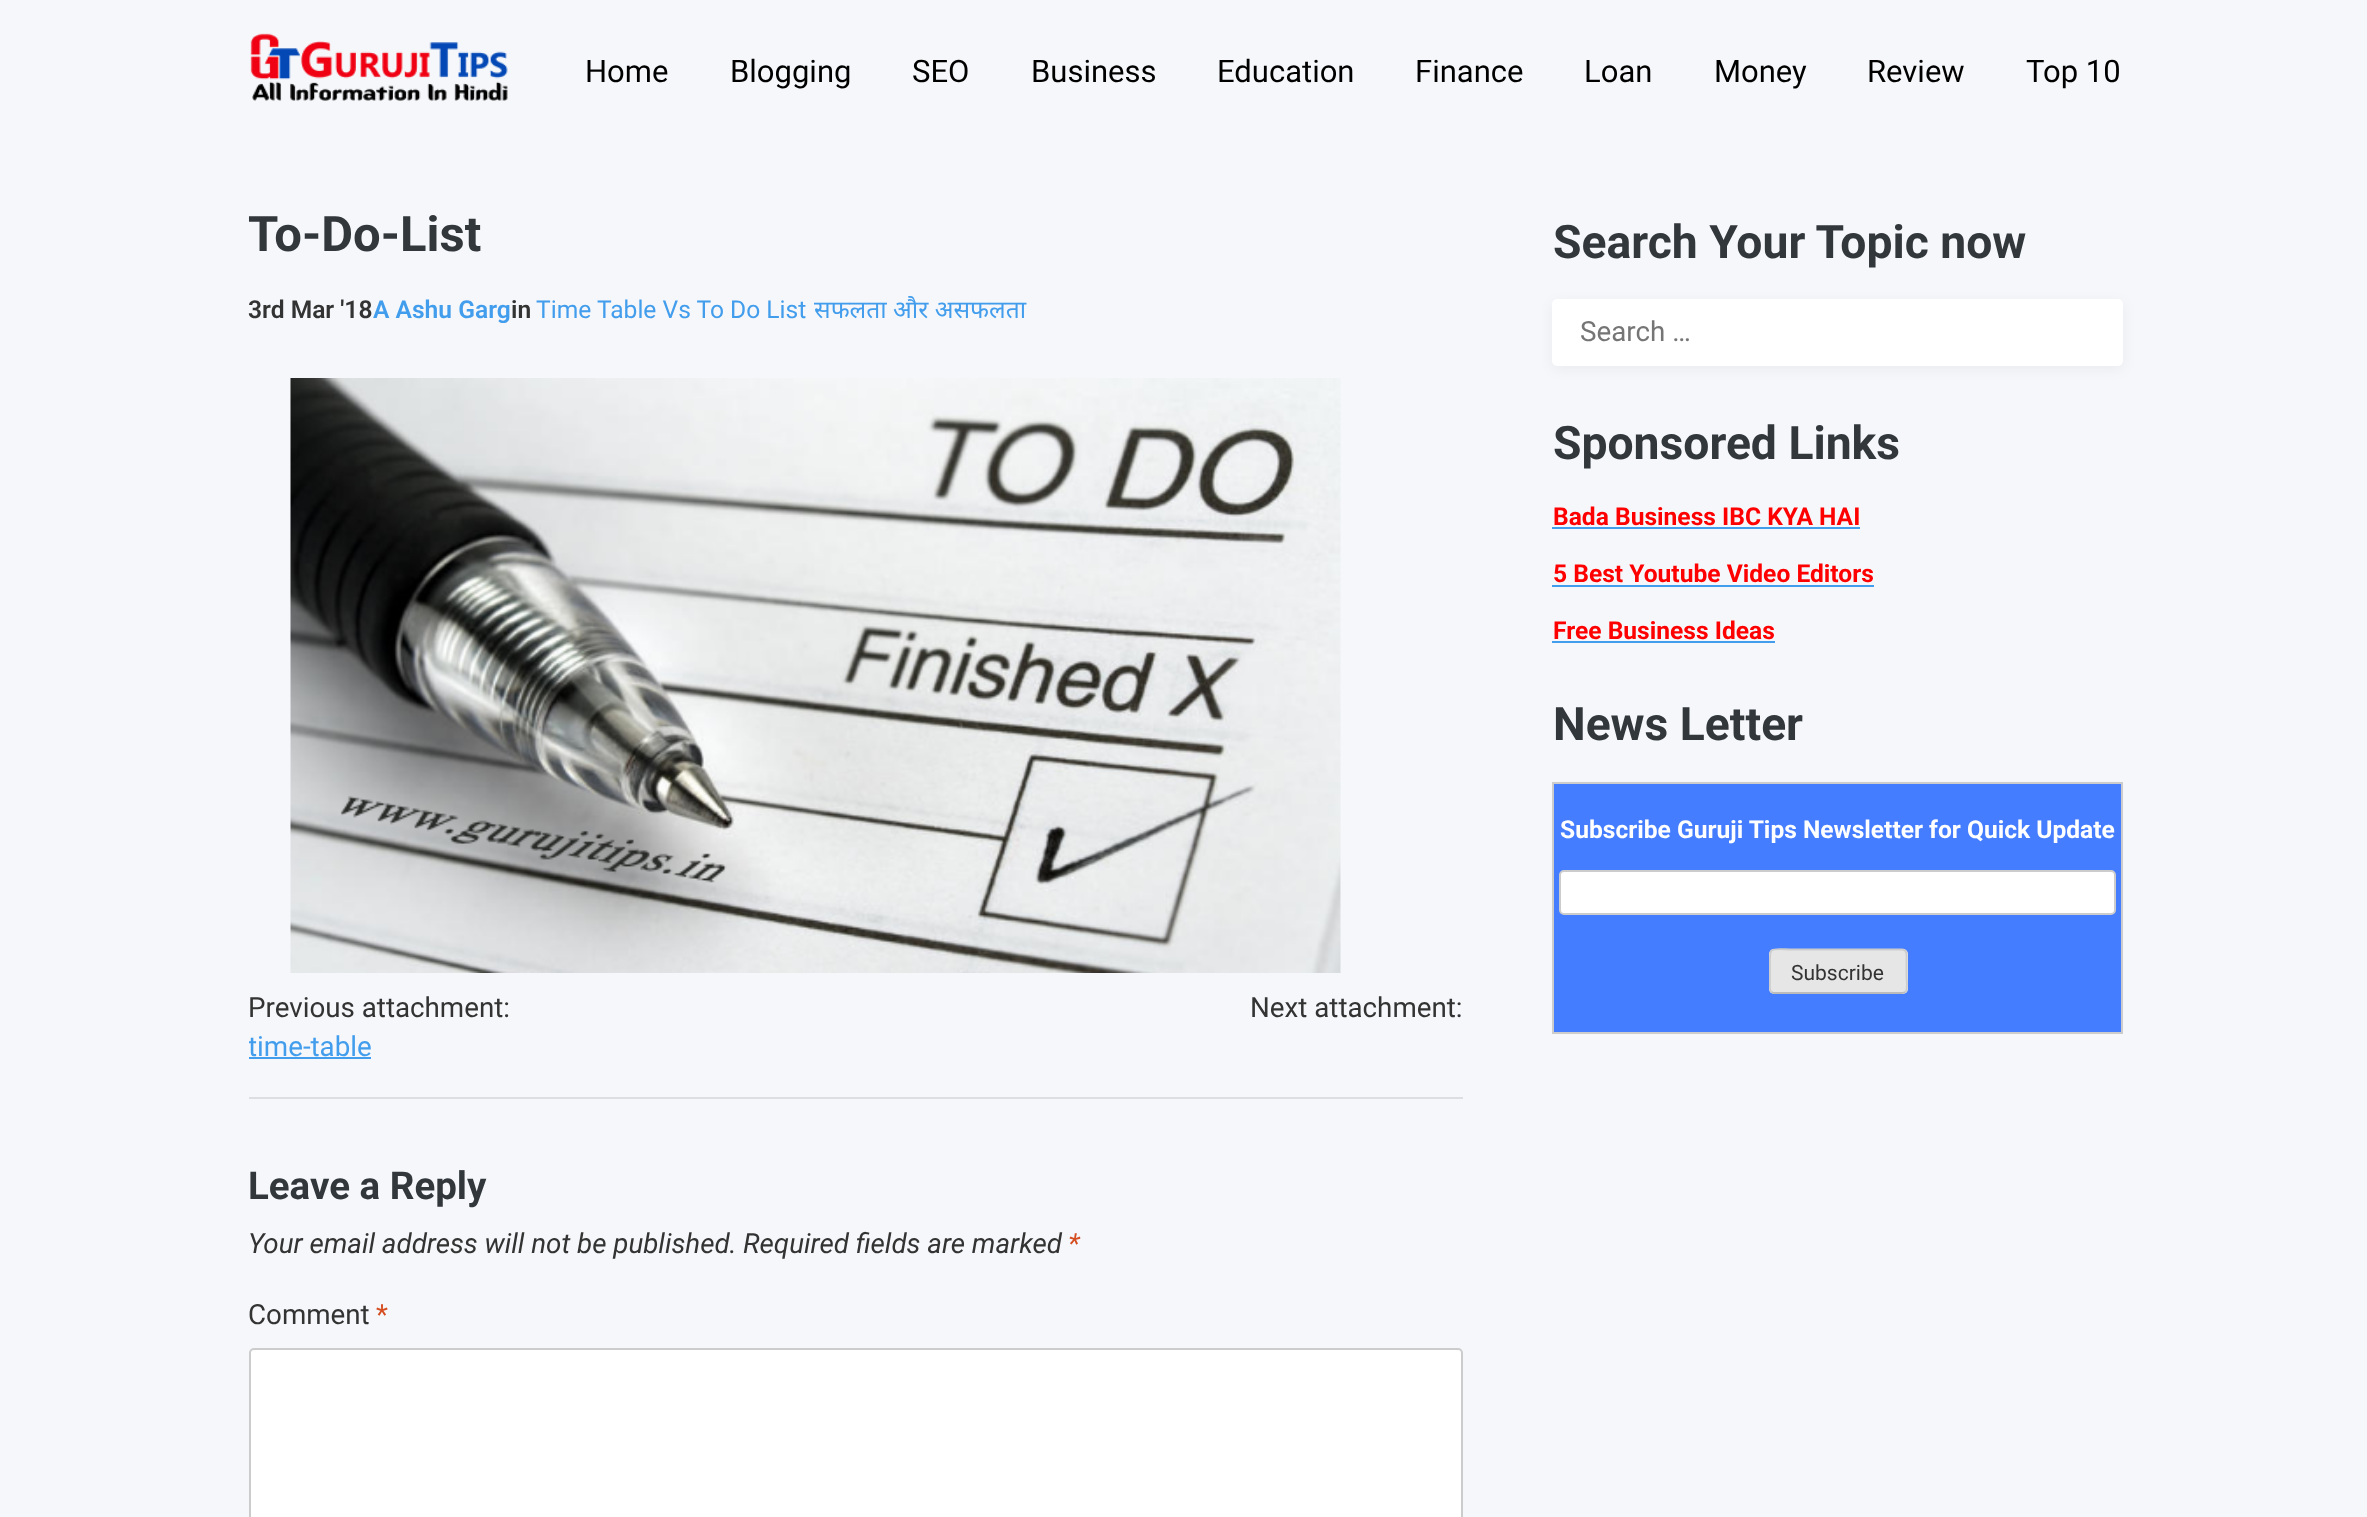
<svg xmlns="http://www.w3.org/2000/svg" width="2367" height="1517">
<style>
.a{font:31px Roboto;fill:#000}
.b{font:bold 49px Roboto;fill:#32373c}
.c{font:600 24.6px Roboto;fill:#333}
.d{font:600 24.6px Roboto;fill:#429ded}
.e{font:24.6px Roboto;fill:#429ded}
.f{font:24.6px Noto Sans;fill:#429ded}
.g{font:27.75px Roboto;fill:#333}
.h{font:27.75px Roboto;fill:#429ded}
.i{font:bold 38.5px Roboto;fill:#32373c}
.j{font:italic 27.75px Roboto;fill:#333}
.k{font:italic 27.75px Roboto;fill:#d54e21}
.l{font:27.75px Roboto;fill:#d54e21}
.m{font:bold 46.25px Roboto;fill:#32373c}
.n{font:27.75px Roboto;fill:#757575}
.o{font:bold 24.6px Roboto;fill:#f00}
.p{font:bold 24.6px Roboto;fill:#fff}
.q{font:21px Roboto;fill:#333}
</style>
<defs>
<clipPath id="clip1"><path d="M249 989h1214v108H249z"/></clipPath>
</defs>
<rect width="100%" height="100%" fill="#f5f7fa"/>
<image href="1.png" x="250" y="33" width="258" height="68"/>
<image href="2.png" x="290" y="378" width="1051" height="595"/>
<path fill="#dddee1" d="M249 1097h1214v2H249z"/>
<path fill="#429ded" d="M249 1057h122v2H249z"/>
<rect fill="#fff" stroke="#ccc" stroke-width="2" x="250" y="1349" width="1212" height="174" rx="4"/>
<rect fill="#0000000d" filter="blur(7px)" x="1552" y="303" width="571" height="66" rx="5"/>
<rect fill="#fff" x="1552" y="299" width="571" height="67" rx="5"/>
<path fill="#429ded" d="M1552 527h308v2H1552z"/>
<path fill="#429ded" d="M1552 585h322v2H1552z"/>
<path fill="#429ded" d="M1552 641h223v2H1552z"/>
<path fill="#447dff" stroke="#ccc" stroke-width="2" d="M1553 783h569v250H1553z"/>
<rect fill="#fff" stroke="#ccc" stroke-width="2" x="1560" y="871" width="555" height="43" rx="4"/>
<rect fill="#e6e6e6" x="1769" y="949" width="139" height="45" rx="5"/>
<path fill="none" stroke="#bbb" stroke-width="1.8" d="M1905.5 992l-3.5 1h-128l-2.5-1"/>
<path fill="none" stroke="#ccc" stroke-width="1.8" d="M1771.5 992c-2.5-2.5-1.5-6.5-1.5-9v-12c0-26.5-3.5-21.5 26-21.5h106c5.5 0 4.5 6.5 4.5 10v17.5c0 3 1.5 12-1 15"/>
<text class="a" x="585" y="82">Home</text>
<text class="a" x="730" y="82">Blogging</text>
<text class="a" x="912" y="82">SEO</text>
<text class="a" x="1031" y="82">Business</text>
<text class="a" x="1217" y="82">Education</text>
<text class="a" x="1415" y="82">Finance</text>
<text class="a" x="1584" y="82">Loan</text>
<text class="a" x="1714" y="82">Money</text>
<text class="a" x="1867" y="82">Review</text>
<text class="a" x="2026" y="82">Top 10</text>
<text class="b" x="248" y="251">To-Do-List</text>
<text class="c" x="248" y="318">3rd Mar '18</text>
<text class="d" x="373" y="318">A Ashu Garg</text>
<text class="c" x="511" y="318">in</text>
<text class="e" x="536" y="318">Time Table Vs To Do List</text>
<text class="f" x="814" y="318">सफलता और असफलता</text>
<text class="g" x="248" y="1017">Previous attachment:</text>
<g clip-path="url(#clip1)">
<text class="h" x="248" y="1056">time-table</text>
</g>
<text class="g" x="1250" y="1017">Next attachment:</text>
<text class="i" x="248" y="1199">Leave a Reply</text>
<text class="j" x="248" y="1253">Your email address will not be published.</text>
<text class="j" x="743" y="1253">Required fields are marked</text>
<text class="k" x="1068" y="1253">*</text>
<text class="g" x="248" y="1324">Comment</text>
<text class="l" x="376" y="1324">*</text>
<text class="m" x="1553" y="258">Search Your Topic now</text>
<text class="n" x="1580" y="341">Search …</text>
<text class="m" x="1553" y="459">Sponsored Links</text>
<text class="o" x="1553" y="525">Bada Business IBC KYA HAI</text>
<text class="o" x="1553" y="582">5 Best Youtube Video Editors</text>
<text class="o" x="1553" y="639">Free Business Ideas</text>
<text class="m" x="1553" y="740">News Letter</text>
<text class="p" x="1560" y="838">Subscribe Guruji Tips Newsletter for Quick Update</text>
<text class="q" x="1791" y="980">Subscribe</text>
</svg>
